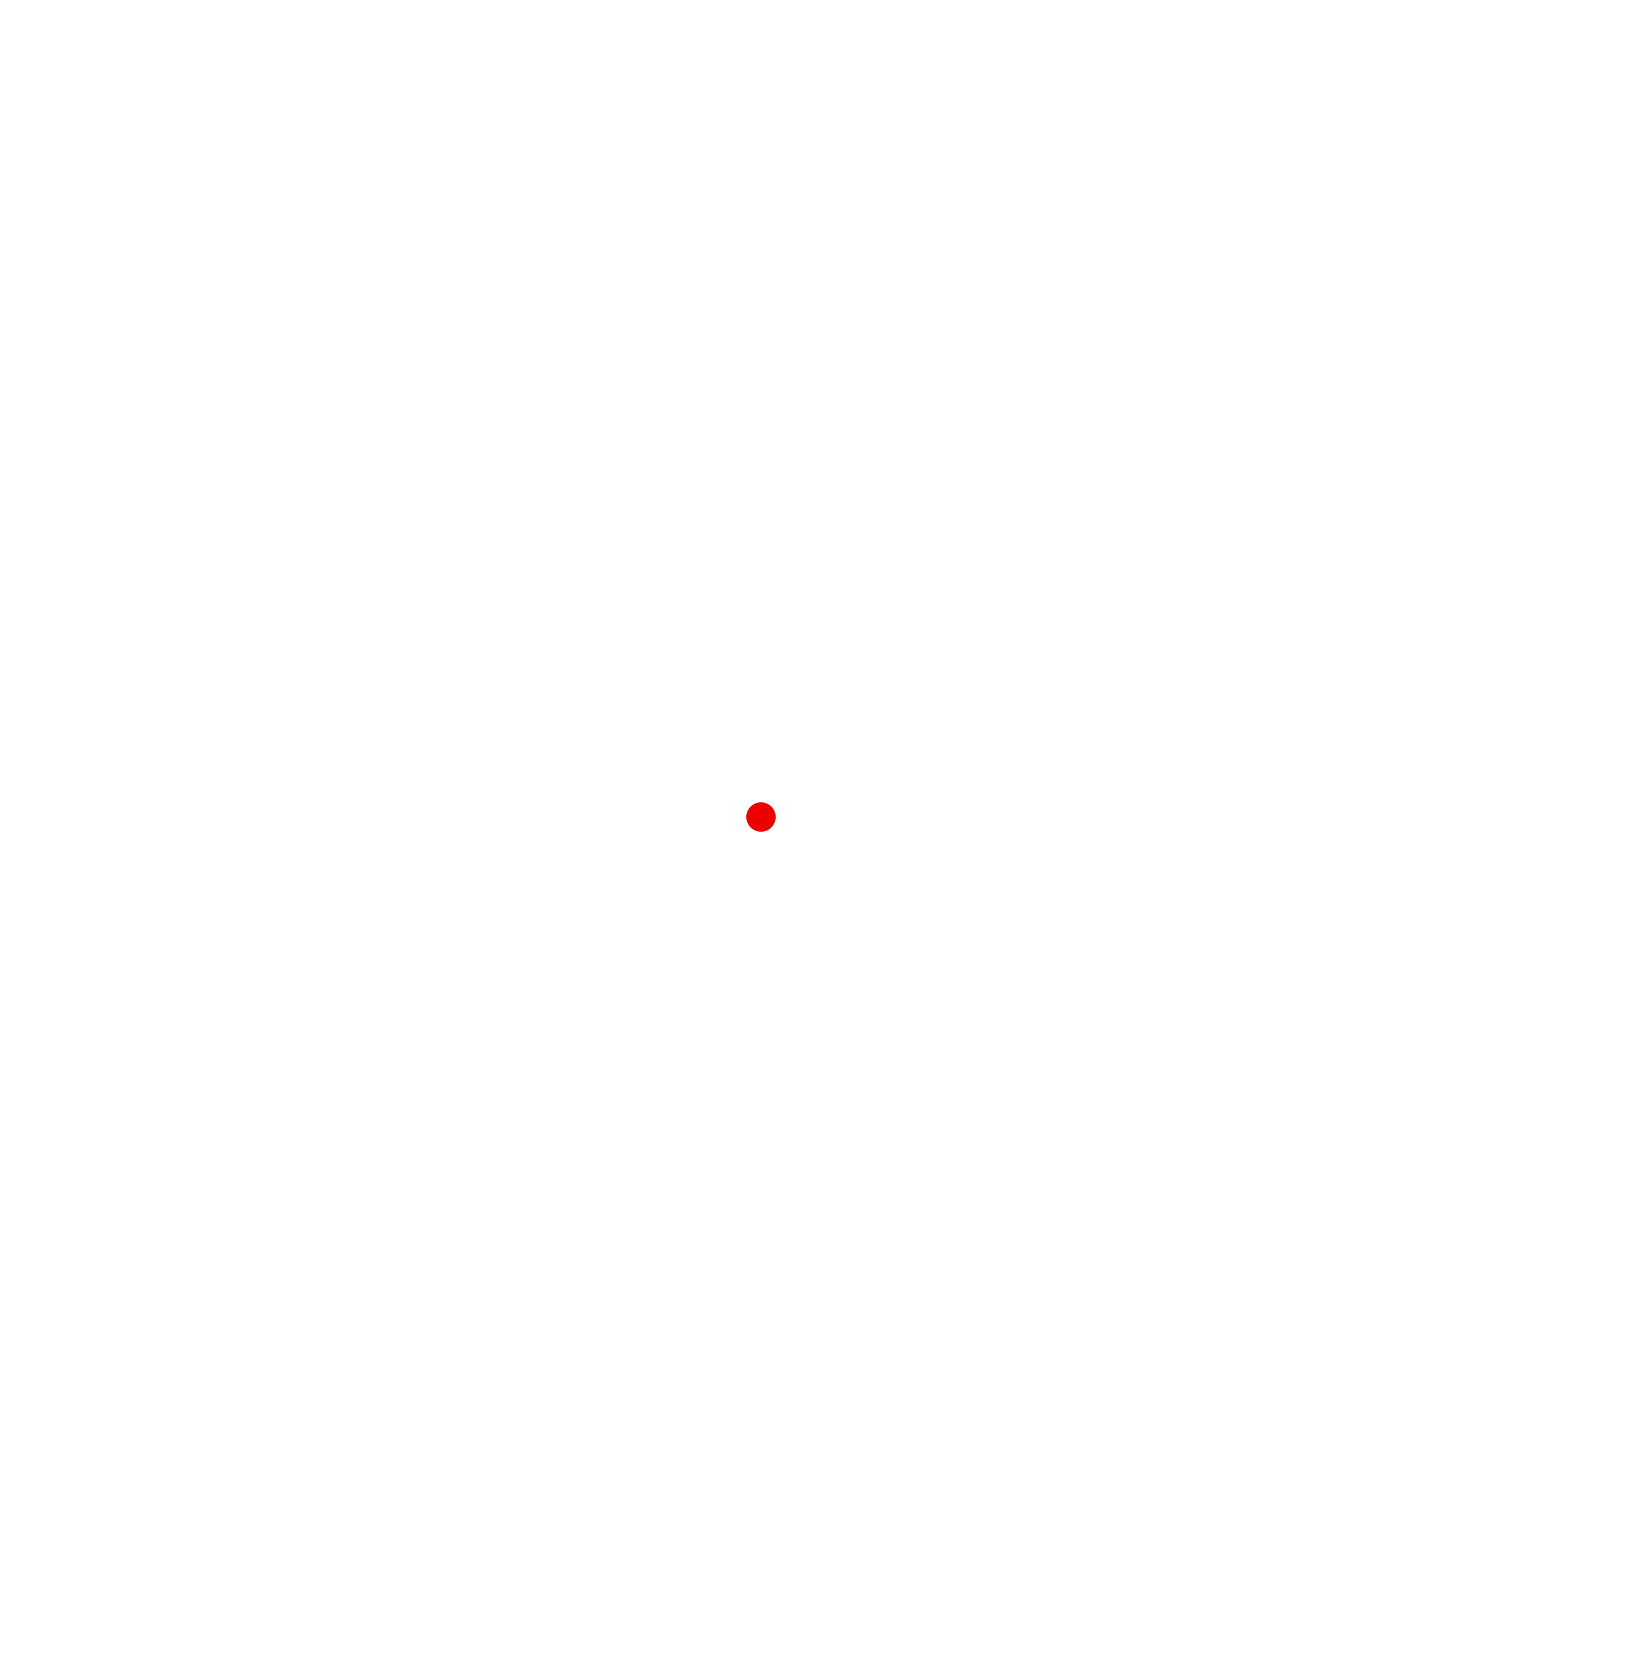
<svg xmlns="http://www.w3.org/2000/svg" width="1642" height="1661">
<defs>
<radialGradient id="g1" gradientUnits="userSpaceOnUse" cx="761" cy="817" r="15"><stop offset="0.9" stop-color="#ed0000"/><stop offset="1" stop-color="#fff"/></radialGradient>
<radialGradient id="g2" gradientUnits="userSpaceOnUse" cx="761" cy="817" r="15"><stop offset="0.9" stop-color="#ed0000"/><stop offset="1" stop-color="#ed0000" stop-opacity="0"/></radialGradient>
</defs>
<rect width="100%" height="100%" fill="#fff"/>
<path fill="url(#g1)" d="M746 802h30v30H746z"/>
<path fill="url(#g2)" d="M746 802h30v30H746z"/>
<path fill="url(#g2)" d="M746 802h30v30H746z"/>
<path fill="url(#g2)" d="M746 802h30v30H746z"/>
</svg>
